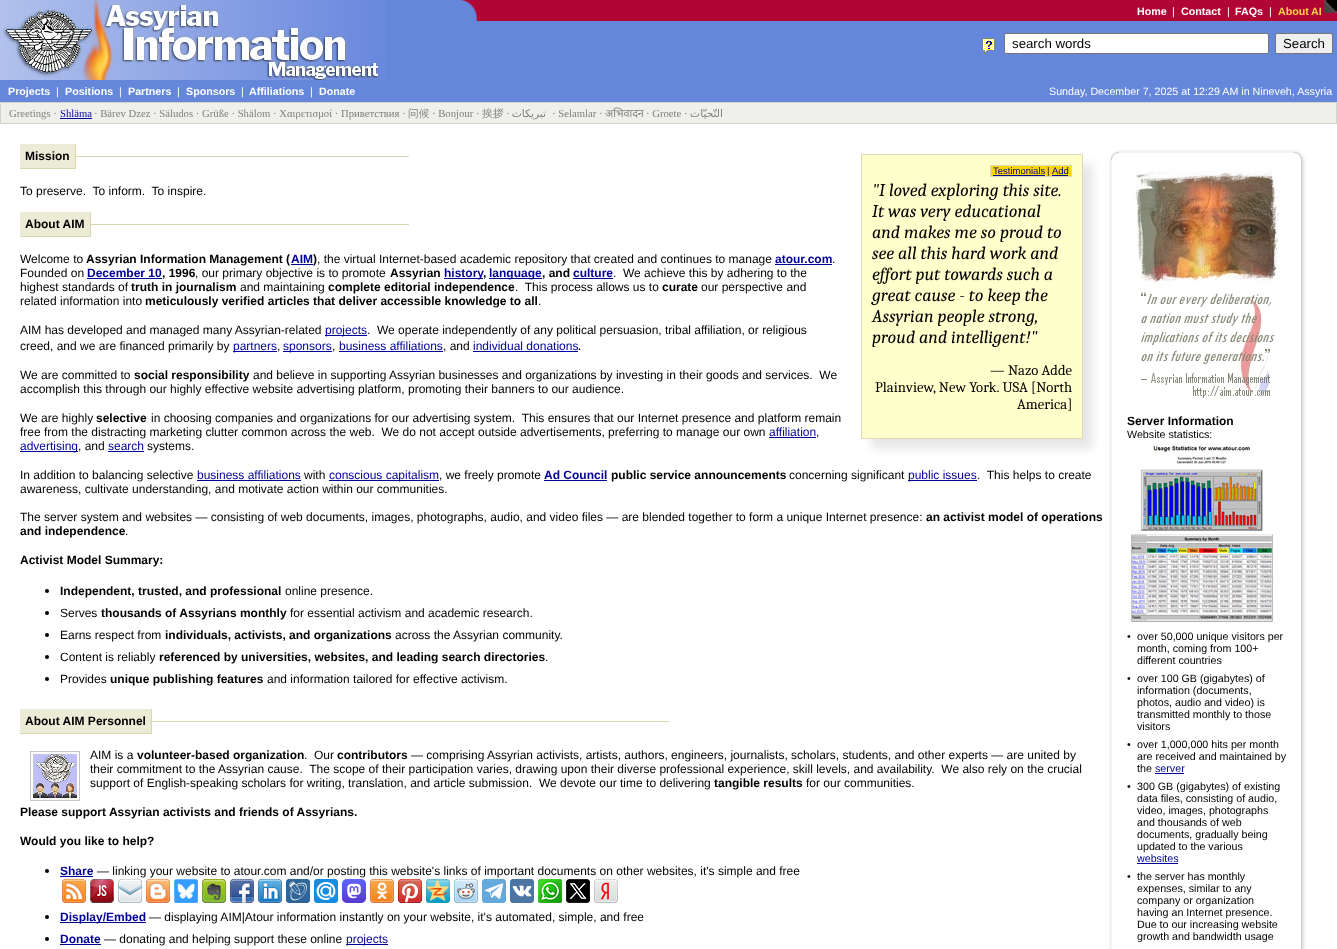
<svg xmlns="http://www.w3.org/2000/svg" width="1337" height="949">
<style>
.a{font:bold 10.7px Liberation Sans;fill:#fff}
.b{font:10.7px Liberation Sans;fill:#fff}
.c{font:bold 10.7px Liberation Sans;fill:#ffd24b}
.d{font:13.25px Liberation Sans;fill:#000}
.e{font:10.7px Liberation Serif;fill:#808080}
.f{font:10.7px Liberation Serif;fill:#009}
.g{font:500 10.7px WenQuanYi Zen Hei;fill:#808080}
.h{font:10.7px DejaVu Sans;direction:rtl;fill:#808080}
.i{font:10.7px Noto Sans;fill:#808080}
.j{font:bold 12px Liberation Sans;fill:#000}
.k{font:12px Liberation Sans;fill:#000}
.l{font:9.5px Liberation Sans;fill:#009}
.m{font:9.5px Liberation Sans;fill:#000}
.n{font:italic 18px Caladea;fill:#000}
.o{font:14.7px Caladea;fill:#000}
.p{font:bold 12px Liberation Sans;fill:#009}
.q{font:12px Liberation Sans;fill:#009}
.r{font:10.7px Liberation Sans;fill:#000}
.s{font:10.7px Liberation Sans;fill:#009}
</style>
<rect width="100%" height="100%" fill="#fff"/>
<path fill="#b10633" d="M477 0h860v21H477z"/>
<path fill="#000" d="M1326 0h11v11H1326z"/>
<image href="1.png" x="1324" y="0" width="13" height="13"/>
<path fill="#6487dc" d="M386 0h14v80H386z"/>
<image href="2.png" x="0" y="0" width="386" height="80"/>
<path fill="#6487dc" d="M400 0h77v21H400z"/>
<image href="3.png" x="460" y="0" width="17" height="20"/>
<path fill="#6487dc" d="M400 21h937v59H400z"/>
<image href="4.png" x="982" y="38" width="13" height="16"/>
<rect fill="#fff" stroke="#767676" x="1004.5" y="33.5" width="264" height="20" rx="1.5"/>
<rect fill="#efefef" stroke="#767676" x="1275.5" y="33.5" width="57" height="20" rx="1.5"/>
<path fill="#6487dc" d="M0 80h1337v22H0z"/>
<path fill="#eff0ec" stroke="#d2d5cc" d="M0.5 102.5h1336v21H0.5z"/>
<path fill="#009" d="M60 118h32v1H60z"/>
<path fill="#ebebd6" d="M20 144h55v24H20z"/>
<path fill="#d7d7b0" d="M75 144h1v25H75z"/>
<path fill="#d7d7b0" d="M20 168h56v1H20z"/>
<path fill="#d7d7b0" d="M76 156h333v1H76z"/>
<path fill="#e7e7e7" filter="blur(5px)" d="M871 164h222v285H871z"/>
<path fill="#ffc" stroke="#d9d9b5" d="M861.5 154.5h221v284H861.5z"/>
<path fill="#ffd700" stroke="#d9d9b5" d="M990.5 165.5h81v11H990.5z"/>
<path fill="#009" d="M993 175h52v1H993z"/>
<path fill="#009" d="M1052 175h16v1H1052z"/>
<path fill="#ebebd6" d="M20 212h70v24H20z"/>
<path fill="#d7d7b0" d="M90 212h1v25H90z"/>
<path fill="#d7d7b0" d="M20 236h71v1H20z"/>
<path fill="#d7d7b0" d="M91 224h318v1H91z"/>
<path fill="#009" d="M291 264h22v1H291z"/>
<path fill="#009" d="M775 264h57v1H775z"/>
<path fill="#009" d="M87 278h75v1H87z"/>
<path fill="#009" d="M444 278h39v1H444z"/>
<path fill="#009" d="M489 278h53v1H489z"/>
<path fill="#009" d="M573 278h40v1H573z"/>
<path fill="#009" d="M325 335h42v1H325z"/>
<path fill="#009" d="M233 351h44v1H233z"/>
<path fill="#009" d="M283 351h49v1H283z"/>
<path fill="#009" d="M339 351h104v1H339z"/>
<path fill="#009" d="M473 351h105v1H473z"/>
<path fill="#009" d="M769 437h47v1H769z"/>
<path fill="#009" d="M20 451h58v1H20z"/>
<path fill="#009" d="M108 451h36v1H108z"/>
<image href="5.png" x="1109" y="150" width="10" height="10"/>
<path fill="#f3f3f3" d="M1119 150h175v3H1119z"/>
<image href="6.png" x="1294" y="150" width="12" height="10"/>
<path fill="#f3f3f3" d="M1109 160h3v789H1109z"/>
<image href="7.png" x="1135" y="170" width="144" height="228"/>
<image href="8.png" x="1127" y="440" width="150" height="184"/>
<path fill="#009" d="M1155 773h29v1H1155z"/>
<path fill="#009" d="M1137 863h41v1H1137z"/>
<image href="9.png" x="1301" y="160" width="5" height="789"/>
<path fill="#009" d="M197 480h104v1H197z"/>
<path fill="#009" d="M329 480h110v1H329z"/>
<path fill="#009" d="M544 480h63v1H544z"/>
<path fill="#009" d="M908 480h69v1H908z"/>
<circle fill="#000" cx="47" cy="591" r="2"/>
<circle fill="#000" cx="47" cy="613" r="2"/>
<circle fill="#000" cx="47" cy="635" r="2"/>
<circle fill="#000" cx="47" cy="657" r="2"/>
<circle fill="#000" cx="47" cy="679" r="2"/>
<path fill="#ebebd6" d="M20 709h131v24H20z"/>
<path fill="#d7d7b0" d="M151 709h1v25H151z"/>
<path fill="#d7d7b0" d="M20 733h132v1H20z"/>
<path fill="#d7d7b0" d="M152 721h517v1H152z"/>
<image href="10.png" x="30" y="751" width="50" height="50"/>
<circle fill="#000" cx="47" cy="871" r="2"/>
<path fill="#009" d="M60 876h33v1H60z"/>
<image href="11.png" x="62" y="879" width="24" height="24"/>
<image href="12.png" x="90" y="879" width="24" height="24"/>
<image href="13.png" x="118" y="879" width="24" height="24"/>
<image href="14.png" x="146" y="879" width="24" height="24"/>
<image href="15.png" x="174" y="879" width="24" height="24"/>
<image href="16.png" x="202" y="879" width="24" height="24"/>
<image href="17.png" x="230" y="879" width="24" height="24"/>
<image href="18.png" x="258" y="879" width="24" height="24"/>
<image href="19.png" x="286" y="879" width="24" height="24"/>
<image href="20.png" x="314" y="879" width="24" height="24"/>
<image href="21.png" x="342" y="879" width="24" height="24"/>
<image href="22.png" x="370" y="879" width="24" height="24"/>
<image href="23.png" x="398" y="879" width="24" height="24"/>
<image href="24.png" x="426" y="879" width="24" height="24"/>
<image href="25.png" x="454" y="879" width="24" height="24"/>
<image href="26.png" x="482" y="879" width="24" height="24"/>
<image href="27.png" x="510" y="879" width="24" height="24"/>
<image href="28.png" x="538" y="879" width="24" height="24"/>
<image href="29.png" x="566" y="879" width="24" height="24"/>
<image href="30.png" x="594" y="879" width="24" height="24"/>
<circle fill="#000" cx="47" cy="917" r="2"/>
<path fill="#009" d="M60 922h86v1H60z"/>
<circle fill="#000" cx="47" cy="939" r="2"/>
<path fill="#009" d="M60 944h41v1H60z"/>
<path fill="#009" d="M346 944h42v1H346z"/>
<text class="a" x="1137" y="15">Home</text>
<text class="b" x="1172" y="15">|</text>
<text class="a" x="1181" y="15">Contact</text>
<text class="b" x="1227" y="15">|</text>
<text class="a" x="1235" y="15">FAQs</text>
<text class="b" x="1269" y="15">|</text>
<text class="c" x="1278" y="15">About</text>
<text class="c" x="1311" y="15">AI</text>
<text class="d" x="1012" y="48">search words</text>
<text class="d" x="1283" y="48">Search</text>
<text class="a" x="8" y="95">Projects</text>
<text class="b" x="56" y="95">|</text>
<text class="a" x="65" y="95">Positions</text>
<text class="b" x="119" y="95">|</text>
<text class="a" x="128" y="95">Partners</text>
<text class="b" x="177" y="95">|</text>
<text class="a" x="186" y="95">Sponsors</text>
<text class="b" x="241" y="95">|</text>
<text class="a" x="249" y="95">Affiliations</text>
<text class="b" x="310" y="95">|</text>
<text class="a" x="319" y="95">Donate</text>
<text class="b" x="1049" y="95">Sunday, December 7, 2025 at 12:29 AM in Nineveh, Assyria</text>
<text class="e" x="9" y="117">Greetings ·</text>
<text class="f" x="60" y="117">Shläma</text>
<text class="e" x="94" y="117">· Bärev Dzez · Säludos · Grüße · Shälom · Χαιρετισμοί · Приветствия ·</text>
<text class="g" x="408" y="117">问候</text>
<text class="e" x="432" y="117">· Bonjour ·</text>
<text class="g" x="482" y="117">挨拶</text>
<text class="e" x="506" y="117">·</text>
<text class="h" x="546" y="117">تبریکات</text>
<text class="e" x="552" y="117">· Selamlar ·</text>
<text class="i" x="605" y="117">अभिवादन</text>
<text class="e" x="646" y="117">· Groete ·</text>
<text class="h" x="723" y="117">التّحيّات</text>
<text class="j" x="25" y="160">Mission</text>
<text class="k" xml:space="preserve" x="20" y="195">To preserve.  To inform.  To inspire.</text>
<text class="l" x="993" y="174">Testimonials</text>
<text class="m" x="1047" y="174">|</text>
<text class="l" x="1052" y="174">Add</text>
<text class="n" x="872" y="196">"I loved exploring this site.</text>
<text class="n" x="872" y="217">It was very educational</text>
<text class="n" x="872" y="238">and makes me so proud to</text>
<text class="n" x="872" y="259">see all this hard work and</text>
<text class="n" x="872" y="280">effort put towards such a</text>
<text class="n" x="872" y="301">great cause - to keep the</text>
<text class="n" x="872" y="322">Assyrian people strong,</text>
<text class="n" x="872" y="343">proud and intelligent!"</text>
<text class="o" x="990" y="375">— Nazo Adde</text>
<text class="o" x="875" y="392">Plainview, New York. USA [North</text>
<text class="o" x="1017" y="409">America]</text>
<text class="j" x="25" y="228">About AIM</text>
<text class="k" x="20" y="263">Welcome to</text>
<text class="j" x="86" y="263">Assyrian Information Management (</text>
<text class="p" x="291" y="263">AIM</text>
<text class="j" x="313" y="263">)</text>
<text class="k" x="317" y="263">, the virtual Internet-based academic repository that created and continues to manage</text>
<text class="p" x="775" y="263">atour.com</text>
<text class="k" x="832" y="263">.</text>
<text class="k" x="20" y="277">Founded on</text>
<text class="p" x="87" y="277">December 10</text>
<text class="j" x="162" y="277">, 1996</text>
<text class="k" x="195" y="277">, our primary objective is to promote</text>
<text class="j" x="390" y="277">Assyrian</text>
<text class="p" x="444" y="277">history</text>
<text class="j" x="483" y="277">,</text>
<text class="p" x="489" y="277">language</text>
<text class="j" x="542" y="277">, and</text>
<text class="p" x="573" y="277">culture</text>
<text class="k" xml:space="preserve" x="613" y="277">.  We achieve this by adhering to the</text>
<text class="k" x="20" y="291">highest standards of</text>
<text class="j" x="131" y="291">truth in journalism</text>
<text class="k" x="240" y="291">and maintaining</text>
<text class="j" x="328" y="291">complete editorial independence</text>
<text class="k" xml:space="preserve" x="515" y="291">.  This process allows us to</text>
<text class="j" x="662" y="291">curate</text>
<text class="k" x="701" y="291">our perspective and</text>
<text class="k" x="20" y="305">related information into</text>
<text class="j" x="145" y="305">meticulously verified articles that deliver accessible knowledge to all</text>
<text class="k" x="538" y="305">.</text>
<text class="k" x="20" y="334">AIM has developed and managed many Assyrian-related</text>
<text class="q" x="325" y="334">projects</text>
<text class="k" xml:space="preserve" x="367" y="334">.  We operate independently of any political persuasion, tribal affiliation, or religious</text>
<text class="k" x="20" y="350">creed, and we are financed primarily by</text>
<text class="q" x="233" y="350">partners</text>
<text class="k" x="277" y="350">,</text>
<text class="q" x="283" y="350">sponsors</text>
<text class="k" x="332" y="350">,</text>
<text class="q" x="339" y="350">business affiliations</text>
<text class="k" x="443" y="350">, and</text>
<text class="q" x="473" y="350">individual donations</text>
<text class="o" x="578" y="350">.</text>
<text class="k" x="20" y="379">We are committed to</text>
<text class="j" x="134" y="379">social responsibility</text>
<text class="k" xml:space="preserve" x="253" y="379">and believe in supporting Assyrian businesses and organizations by investing in their goods and services.  We</text>
<text class="k" x="20" y="393">accomplish this through our highly effective website advertising platform, promoting their banners to our audience.</text>
<text class="k" x="20" y="422">We are highly</text>
<text class="j" x="96" y="422">selective</text>
<text class="k" xml:space="preserve" x="151" y="422">in choosing companies and organizations for our advertising system.  This ensures that our Internet presence and platform remain</text>
<text class="k" xml:space="preserve" x="20" y="436">free from the distracting marketing clutter common across the web.  We do not accept outside advertisements, preferring to manage our own</text>
<text class="q" x="769" y="436">affiliation</text>
<text class="k" x="816" y="436">,</text>
<text class="q" x="20" y="450">advertising</text>
<text class="k" x="78" y="450">, and</text>
<text class="q" x="108" y="450">search</text>
<text class="k" x="147" y="450">systems.</text>
<text class="j" x="1127" y="425">Server Information</text>
<text class="r" x="1127" y="438">Website statistics:</text>
<text class="r" x="1127" y="640">•</text>
<text class="r" x="1137" y="640">over 50,000 unique visitors per</text>
<text class="r" x="1137" y="652">month, coming from 100+</text>
<text class="r" x="1137" y="664">different countries</text>
<text class="r" x="1127" y="682">•</text>
<text class="r" x="1137" y="682">over 100 GB (gigabytes) of</text>
<text class="r" x="1137" y="694">information (documents,</text>
<text class="r" x="1137" y="706">photos, audio and video) is</text>
<text class="r" x="1137" y="718">transmitted monthly to those</text>
<text class="r" x="1137" y="730">visitors</text>
<text class="r" x="1127" y="748">•</text>
<text class="r" x="1137" y="748">over 1,000,000 hits per month</text>
<text class="r" x="1137" y="760">are received and maintained by</text>
<text class="r" x="1137" y="772">the</text>
<text class="s" x="1155" y="772">server</text>
<text class="r" x="1127" y="790">•</text>
<text class="r" x="1137" y="790">300 GB (gigabytes) of existing</text>
<text class="r" x="1137" y="802">data files, consisting of audio,</text>
<text class="r" x="1137" y="814">video, images, photographs</text>
<text class="r" x="1137" y="826">and thousands of web</text>
<text class="r" x="1137" y="838">documents, gradually being</text>
<text class="r" x="1137" y="850">updated to the various</text>
<text class="s" x="1137" y="862">websites</text>
<text class="r" x="1127" y="880">•</text>
<text class="r" x="1137" y="880">the server has monthly</text>
<text class="r" x="1137" y="892">expenses, similar to any</text>
<text class="r" x="1137" y="904">company or organization</text>
<text class="r" x="1137" y="916">having an Internet presence.</text>
<text class="r" x="1137" y="928">Due to our increasing website</text>
<text class="r" x="1137" y="940">growth and bandwidth usage</text>
<text class="k" x="20" y="479">In addition to balancing selective</text>
<text class="q" x="197" y="479">business affiliations</text>
<text class="k" x="304" y="479">with</text>
<text class="q" x="329" y="479">conscious capitalism</text>
<text class="k" x="439" y="479">, we freely promote</text>
<text class="p" x="544" y="479">Ad Council</text>
<text class="j" x="611" y="479">public service announcements</text>
<text class="k" x="789" y="479">concerning significant</text>
<text class="q" x="908" y="479">public issues</text>
<text class="k" xml:space="preserve" x="977" y="479">.  This helps to create</text>
<text class="k" x="20" y="493">awareness, cultivate understanding, and motivate action within our communities.</text>
<text class="k" x="20" y="521">The server system and websites — consisting of web documents, images, photographs, audio, and video files — are blended together to form a unique Internet presence:</text>
<text class="j" x="926" y="521">an activist model of operations</text>
<text class="j" x="20" y="535">and independence</text>
<text class="k" x="125" y="535">.</text>
<text class="j" x="20" y="564">Activist Model Summary:</text>
<text class="j" x="60" y="595">Independent, trusted, and professional</text>
<text class="k" x="285" y="595">online presence.</text>
<text class="k" x="60" y="617">Serves</text>
<text class="j" x="101" y="617">thousands of Assyrians monthly</text>
<text class="k" x="290" y="617">for essential activism and academic research.</text>
<text class="k" x="60" y="639">Earns respect from</text>
<text class="j" x="165" y="639">individuals, activists, and organizations</text>
<text class="k" x="395" y="639">across the Assyrian community.</text>
<text class="k" x="60" y="661">Content is reliably</text>
<text class="j" x="159" y="661">referenced by universities, websites, and leading search directories</text>
<text class="k" x="545" y="661">.</text>
<text class="k" x="60" y="683">Provides</text>
<text class="j" x="110" y="683">unique publishing features</text>
<text class="k" x="267" y="683">and information tailored for effective activism.</text>
<text class="j" x="25" y="725">About AIM Personnel</text>
<text class="k" x="90" y="759">AIM is a</text>
<text class="j" x="137" y="759">volunteer-based organization</text>
<text class="k" xml:space="preserve" x="304" y="759">.  Our</text>
<text class="j" x="337" y="759">contributors</text>
<text class="k" x="411" y="759">— comprising</text>
<text class="k" x="487" y="759">Assyrian activists, artists, authors, engineers, journalists, scholars, students, and other experts — are united by</text>
<text class="k" xml:space="preserve" x="90" y="773">their commitment to the Assyrian cause.  The scope of their participation varies, drawing upon their diverse professional experience, skill levels, and availability.  We also rely on the crucial</text>
<text class="k" xml:space="preserve" x="90" y="787">support of English-speaking scholars for writing, translation, and article submission.  We devote our time to delivering</text>
<text class="j" x="714" y="787">tangible results</text>
<text class="k" x="806" y="787">for our communities.</text>
<text class="j" x="20" y="816">Please support Assyrian activists and friends of Assyrians.</text>
<text class="j" x="20" y="845">Would you like to help?</text>
<text class="p" x="60" y="875">Share</text>
<text class="k" x="97" y="875">— linking your website to atour.com and/or posting this website's links of important documents on other websites, it's simple and free</text>
<text class="p" x="60" y="921">Display/Embed</text>
<text class="k" x="149" y="921">— displaying AIM|Atour information instantly on your website, it's automated, simple, and free</text>
<text class="p" x="60" y="943">Donate</text>
<text class="k" x="104" y="943">— donating and helping support these online</text>
<text class="q" x="346" y="943">projects</text>
</svg>
